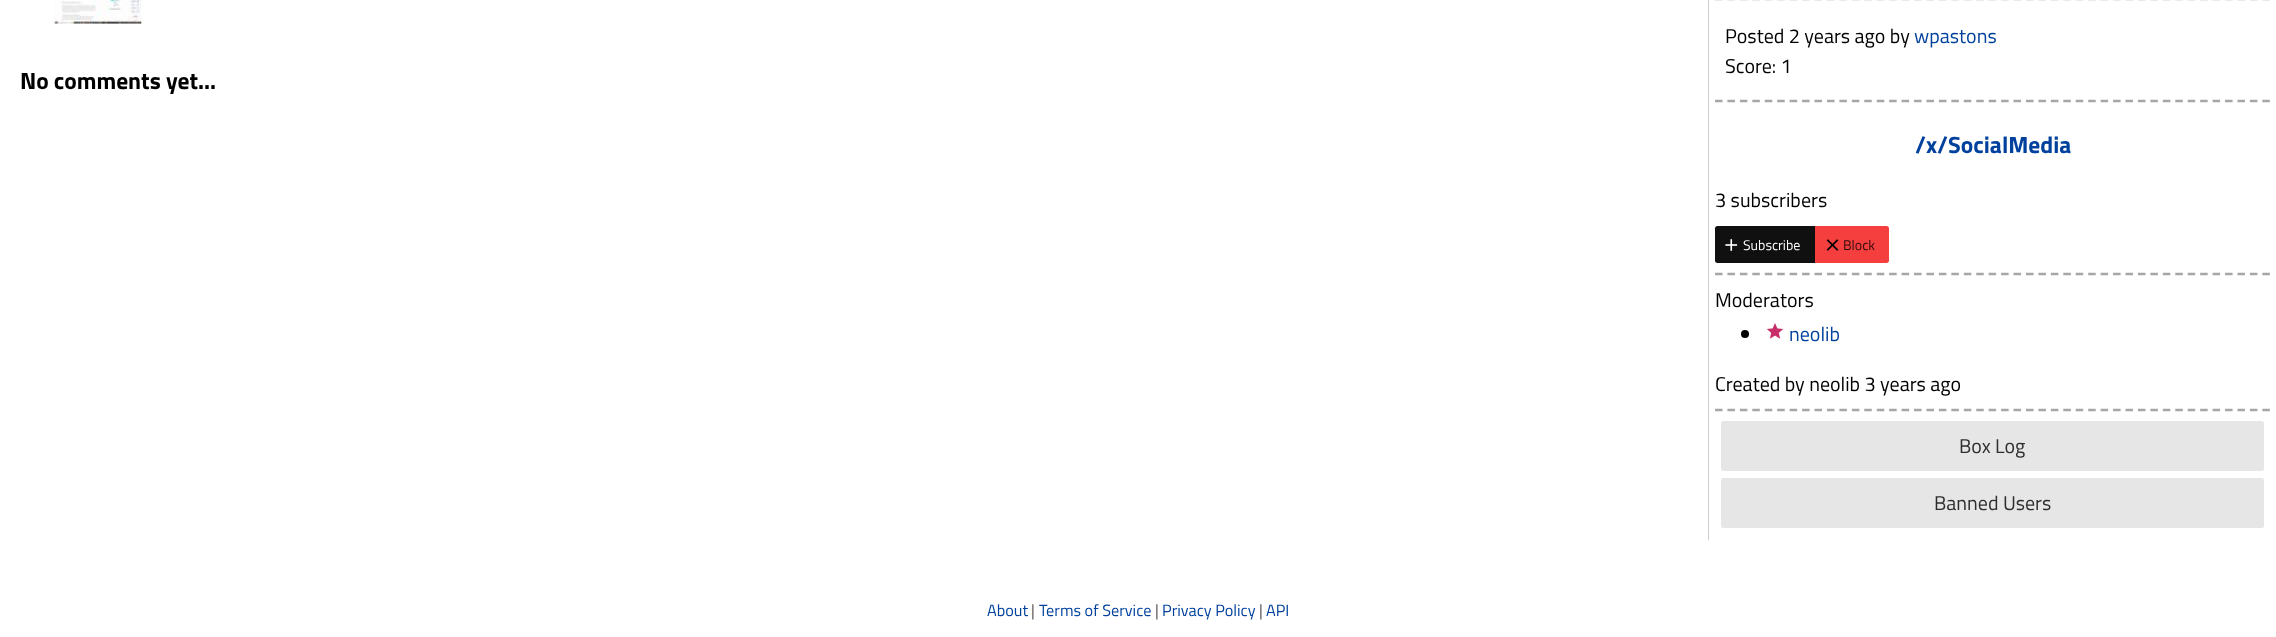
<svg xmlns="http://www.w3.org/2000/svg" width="2276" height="637">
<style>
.a{font:bold 23.5px Titillium Web;fill:#000}
.b{font:20px Titillium Web;fill:#000}
.c{font:20px Titillium Web;fill:#00419d}
.d{font:bold 23.5px Titillium Web;fill:#00419d}
.e{font:14px Titillium Web;fill:#fff}
.f{font:14px Titillium Web;fill:#310c0c}
.g{font:20px Titillium Web;fill:#2e2e2e}
.h{font:16.25px Titillium Web;fill:#00419d}
.i{font:16.25px Titillium Web;fill:#5d5454}
</style>
<rect width="100%" height="100%" fill="#fff"/>
<image href="1.png" x="53" y="0" width="89" height="24"/>
<path fill="#ccc" d="M1708 0h1v540H1708z"/>
<path fill="none" stroke="#a6a6a6" stroke-width="2.5" stroke-dasharray="7.5 4.94" d="M1715-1h555"/>
<path fill="none" stroke="#a6a6a6" stroke-width="2.5" stroke-dasharray="7.5 4.94" d="M1715 101h555"/>
<path fill="#101010" d="M1717.5 226h97.5v37h-97.5c-1.5 0-2.5-1-2.5-2.5v-32c0-1.5 1-2.5 2.5-2.5z"/>
<path fill="#0d0d0d" d="M1814 226h1v37H1814z"/>
<image href="2.png" x="1725" y="239" width="13" height="12"/>
<path fill="#f53e3e" d="M1815 226h71.5c1.5 0 2.5 1 2.5 2.5v32c0 1.5-1 2.5-2.5 2.5h-71.5z"/>
<image href="3.png" x="1826" y="239" width="13" height="12"/>
<path fill="none" stroke="#a6a6a6" stroke-width="2.5" stroke-dasharray="7.5 4.94" d="M1715 274h555"/>
<circle fill="#000" cx="1745" cy="334" r="4"/>
<image href="4.png" x="1766" y="323" width="18" height="16"/>
<path fill="none" stroke="#a6a6a6" stroke-width="2.5" stroke-dasharray="7.5 4.94" d="M1715 410h555"/>
<rect fill="#e6e6e6" x="1721" y="421" width="543" height="50" rx="2.5"/>
<rect fill="#e6e6e6" x="1721" y="478" width="543" height="50" rx="2.5"/>
<text class="a" x="20" y="89">No comments yet...</text>
<text class="b" x="1725" y="43">Posted 2 years ago by</text>
<text class="c" x="1914" y="43">wpastons</text>
<text class="b" x="1725" y="73">Score: 1</text>
<text class="d" x="1915" y="153">/x/SocialMedia</text>
<text class="b" x="1715" y="207">3 subscribers</text>
<text class="e" x="1743" y="250">Subscribe</text>
<text class="f" x="1843" y="250">Block</text>
<text class="b" x="1715" y="307">Moderators</text>
<text class="c" x="1789" y="341">neolib</text>
<text class="b" x="1715" y="391">Created by neolib 3 years ago</text>
<text class="g" x="1959" y="453">Box Log</text>
<text class="g" x="1934" y="510">Banned Users</text>
<text class="h" x="987" y="616">About</text>
<text class="i" x="1031" y="616">|</text>
<text class="h" x="1039" y="616">Terms of Service</text>
<text class="i" x="1155" y="616">|</text>
<text class="h" x="1162" y="616">Privacy Policy</text>
<text class="i" x="1259" y="616">|</text>
<text class="h" x="1266" y="616">API</text>
</svg>
